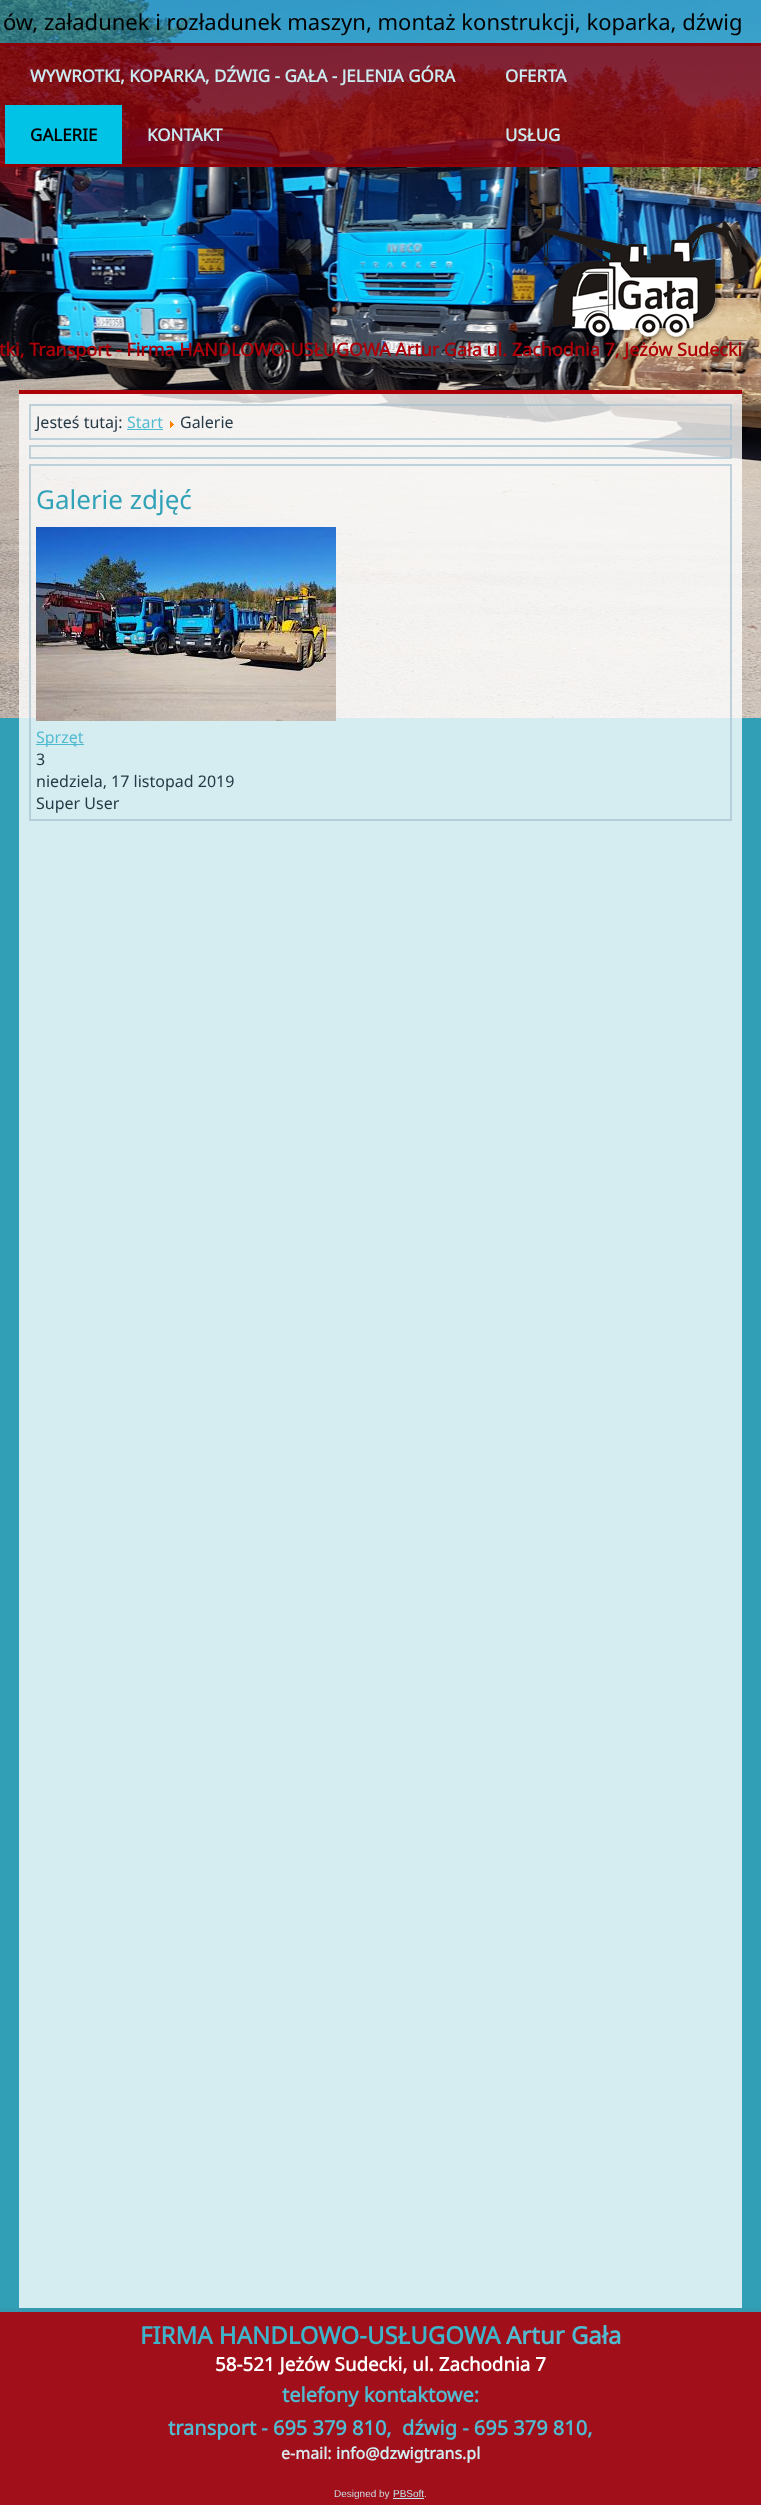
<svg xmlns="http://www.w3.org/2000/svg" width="761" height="2505">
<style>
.a{font:22px Noto Sans;fill:#000}
.b{font:bold 17px Noto Sans;fill:#cbebf1}
.c{font:bold 17px Noto Sans;fill:#000}
.d{font:bold 18px Noto Sans;fill:#ad0009}
.e{font:16px Noto Sans;fill:#253a46}
.f{font:16px Noto Sans;fill:#52bbd1}
.g{font:26px Noto Sans;fill:#32a2b9}
.h{font:bold 24px Noto Sans;fill:#3eb4cb}
.i{font:bold 24px Noto Sans;fill:#52bbd1}
.j{font:bold 18.75px Noto Sans;fill:#fff}
.k{font:bold 20px Noto Sans;fill:#52bbd1}
.l{font:bold 16px Noto Sans;fill:#dbe5eb}
.m{font:bold 16px Noto Sans;fill:#d3eef3}
.n{font:10px Liberation Sans;fill:#cadae2}
.o{font:10px Liberation Sans;fill:#bfe6ee}
</style>
<rect width="100%" height="100%" fill="#319fb5"/>
<image href="1.png" x="0" y="0" width="761" height="718"/>
<path fill="#309eb699" d="M0 0h761v44H0z"/>
<image href="2.png" x="541" y="219" width="212" height="122"/>
<path fill="#8f0007cc" d="M0 43h761v124H0z"/>
<path fill="#8f0007cc" d="M0 43h761v3H0z"/>
<path fill="#8f0007cc" d="M0 164h761v3H0z"/>
<path fill="#00c3e5" d="M5 105h117v59H5z"/>
<path fill="#ffffffcc" d="M19 394h723v1914H19z"/>
<path fill="#ad0009" d="M19 390h723v4H19z"/>
<path fill="none" stroke="#a5c0cfb0" stroke-width="2" d="M30 405h701v34H30z"/>
<path fill="#4ebacf" d="M127 429h36v1H127z"/>
<image href="3.png" x="170" y="421" width="4" height="7"/>
<path fill="none" stroke="#a5c0cfb0" stroke-width="2" d="M30 446h701v12H30z"/>
<path fill="none" stroke="#a5c0cfb0" stroke-width="2" d="M30 465h701v355H30z"/>
<image href="4.png" x="36" y="527" width="300" height="194"/>
<path fill="#4ebacf" d="M36 744h48v1H36z"/>
<path fill="#a1101a" d="M0 2312h761v193H0z"/>
<path fill="#3599af" d="M0 2308h761v4H0z"/>
<path fill="#bfe6ee" d="M393 2498h31v1H393z"/>
<text class="a" x="3" y="30">ów, załadunek i rozładunek maszyn, montaż konstrukcji, koparka, dźwig</text>
<text class="b" x="30" y="82">WYWROTKI, KOPARKA, DŹWIG - GAŁA - JELENIA GÓRA</text>
<text class="b" x="505" y="82">OFERTA</text>
<text class="b" x="505" y="141">USŁUG</text>
<text class="c" x="30" y="141">GALERIE</text>
<text class="b" x="147" y="141">KONTAKT</text>
<text class="d" x="-1" y="356">tki, Transport - Firma HANDLOWO-USŁUGOWA Artur Gała ul. Zachodnia 7, Jeżów Sudecki</text>
<text class="e" x="36" y="428">Jesteś tutaj:</text>
<text class="f" x="127" y="428">Start</text>
<text class="e" x="180" y="428">Galerie</text>
<text class="g" x="36" y="509">Galerie zdjęć</text>
<text class="f" x="36" y="743">Sprzęt</text>
<text class="e" x="36" y="765">3</text>
<text class="e" x="36" y="787">niedziela, 17 listopad 2019</text>
<text class="e" x="36" y="809">Super User</text>
<text class="h" x="140" y="2344">FIRMA HANDLOWO-USŁUGOWA</text>
<text class="i" x="506" y="2344">Artur Gała</text>
<text class="j" x="215" y="2371">58-521 Jeżów Sudecki, ul. Zachodnia 7</text>
<text class="k" x="282" y="2402">telefony kontaktowe:</text>
<text class="k" xml:space="preserve" x="168" y="2435">transport - 695 379 810,  dźwig - 695 379 810,</text>
<text class="l" x="281" y="2459">e-mail:</text>
<text class="m" x="336" y="2459">info@dzwigtrans.pl</text>
<text class="n" x="334" y="2497">Designed by</text>
<text class="o" x="393" y="2497">PBSoft</text>
<text class="n" x="424" y="2497">.</text>
</svg>
